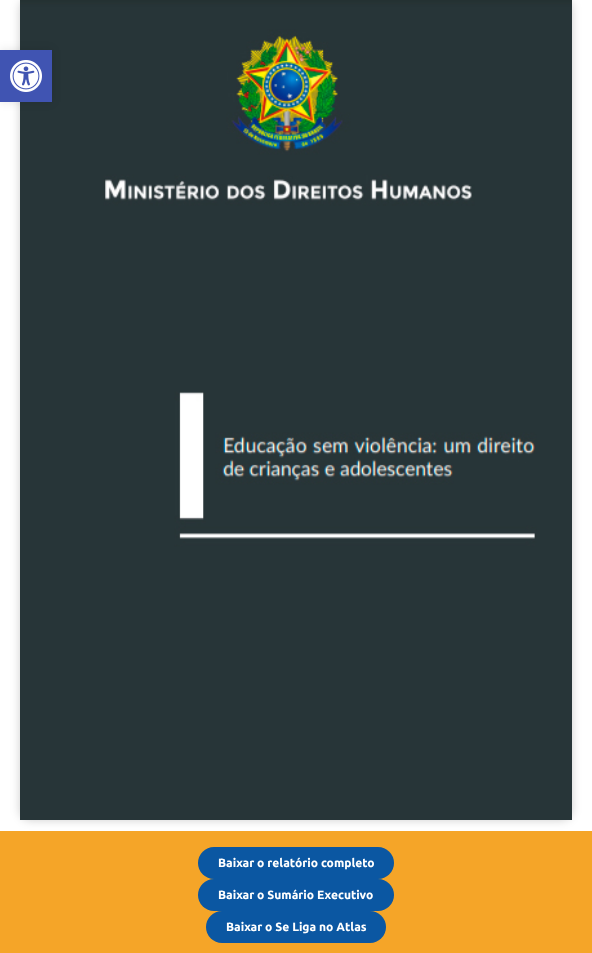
<svg xmlns="http://www.w3.org/2000/svg" width="592" height="953">
<style>
.a{font:bold 12px Ubuntu;fill:#fff}
</style>
<rect width="100%" height="100%" fill="#fff"/>
<rect fill="#00000033" filter="blur(5px)" x="20" y="-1" width="552" height="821" rx="10"/>
<image href="1.png" x="20" y="0" width="552" height="820"/>
<path fill="#0000001a" filter="blur(5px)" d="M0 50h52v52H0z"/>
<path fill="#4054b2" d="M0 50h52v52H0z"/>
<image href="2.png" x="10" y="60" width="32" height="32"/>
<path fill="#f5a528" d="M0 831h592v122H0z"/>
<rect fill="#0b57a2" x="198" y="847" width="196" height="32" rx="16"/>
<rect fill="#0b57a2" x="198" y="879" width="196" height="32" rx="16"/>
<rect fill="#0b57a2" x="206" y="911" width="180" height="32" rx="16"/>
<text class="a" x="218" y="867">Baixar o relatório completo</text>
<text class="a" x="218" y="899">Baixar o Sumário Executivo</text>
<text class="a" x="226" y="931">Baixar o Se Liga no Atlas</text>
</svg>
